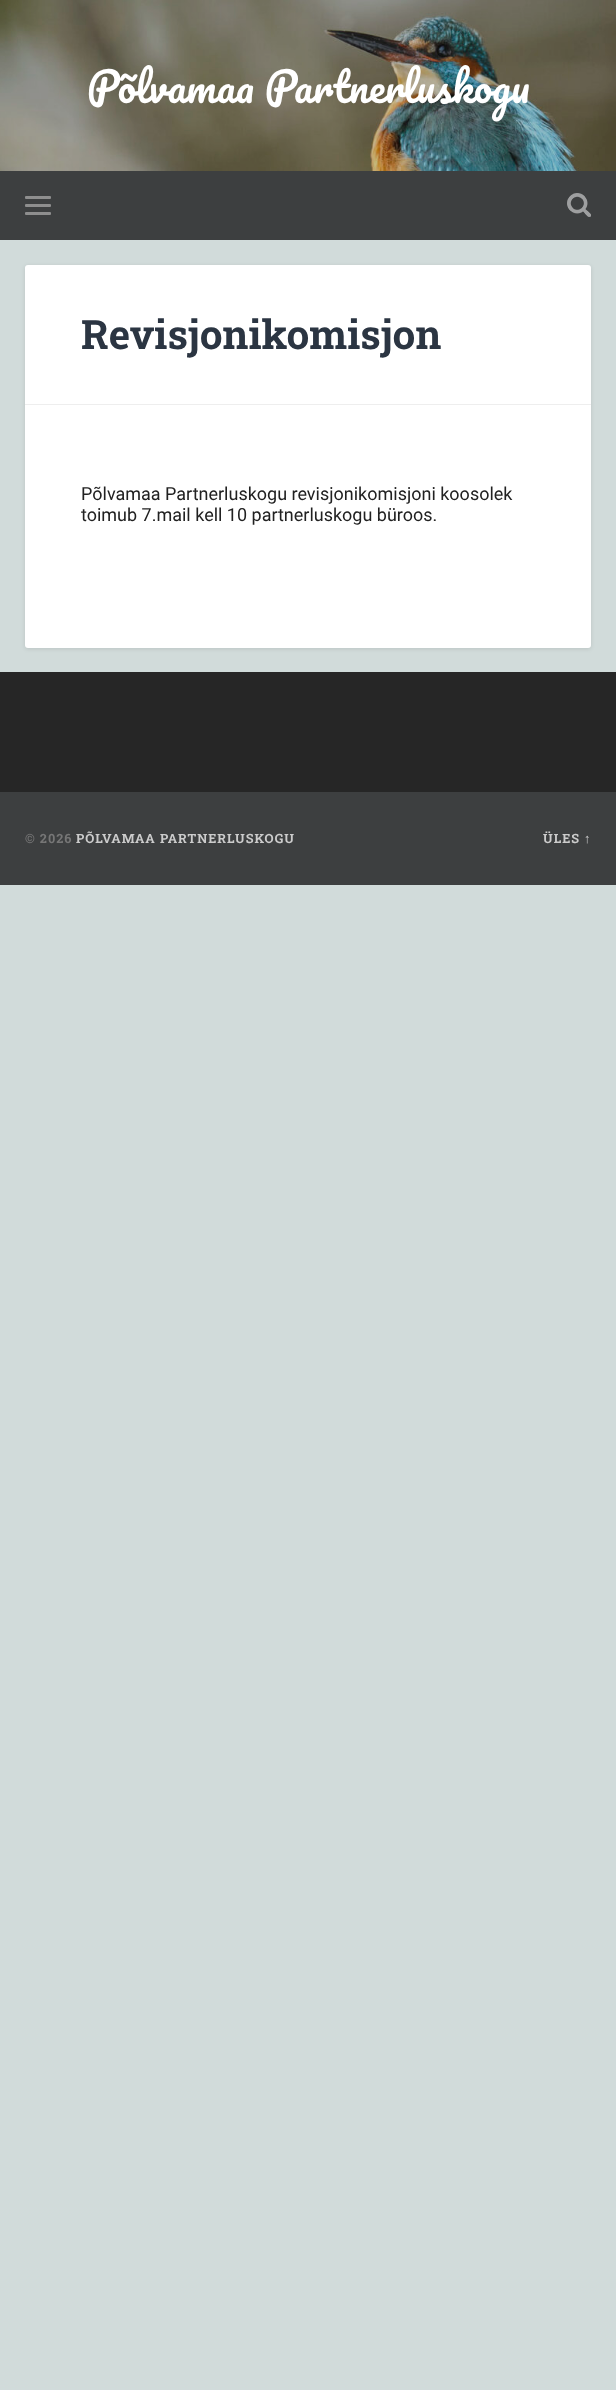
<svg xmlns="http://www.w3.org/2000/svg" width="616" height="2390">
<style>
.a{font:40.5px Pacifico;fill:#fff}
.b{font:bold 40.5px Roboto Slab;fill:#2b3542}
.c{font:18px Roboto;fill:#212121}
.d{font:bold 12.75px Roboto Slab;letter-spacing:1px;fill:#767676}
.e{font:bold 12.75px Roboto Slab;letter-spacing:1px;fill:#ccc}
.f{font:bold 12.75px Liberation Sans;letter-spacing:1px;fill:#ccc}
</style>
<rect width="100%" height="100%" fill="#d1dbda"/>
<image href="1.png" x="0" y="0" width="616" height="171"/>
<path fill="#3d3f40" d="M0 171h616v69H0z"/>
<rect fill="#8e8e8e" x="25" y="196" width="26" height="3" rx="1"/>
<rect fill="#8e8e8e" x="25" y="204" width="26" height="3" rx="1"/>
<rect fill="#8e8e8e" x="25" y="212" width="26" height="3" rx="1"/>
<image href="2.png" x="567" y="193" width="24" height="24"/>
<rect fill="#0000001a" filter="blur(2px)" x="25" y="266" width="566" height="383" rx="3"/>
<rect fill="#fff" x="25" y="265" width="566" height="383" rx="3"/>
<path fill="#eee" d="M25 404h566v1H25z"/>
<path fill="#262626" d="M0 672h616v120H0z"/>
<path fill="#3d3f40" d="M0 792h616v93H0z"/>
<text class="a" x="87" y="103">Põlvamaa Partnerluskogu</text>
<text class="b" x="81" y="349">Revisjonikomisjon</text>
<text class="c" x="81" y="500">Põlvamaa Partnerluskogu revisjonikomisjoni koosolek</text>
<text class="c" x="81" y="521">toimub 7.mail kell 10 partnerluskogu büroos.</text>
<text class="d" x="25" y="843">© 2026</text>
<text class="e" x="76" y="843">PÕLVAMAA PARTNERLUSKOGU</text>
<text class="e" x="543" y="843">ÜLES</text>
<text class="f" x="584" y="843">↑</text>
</svg>
